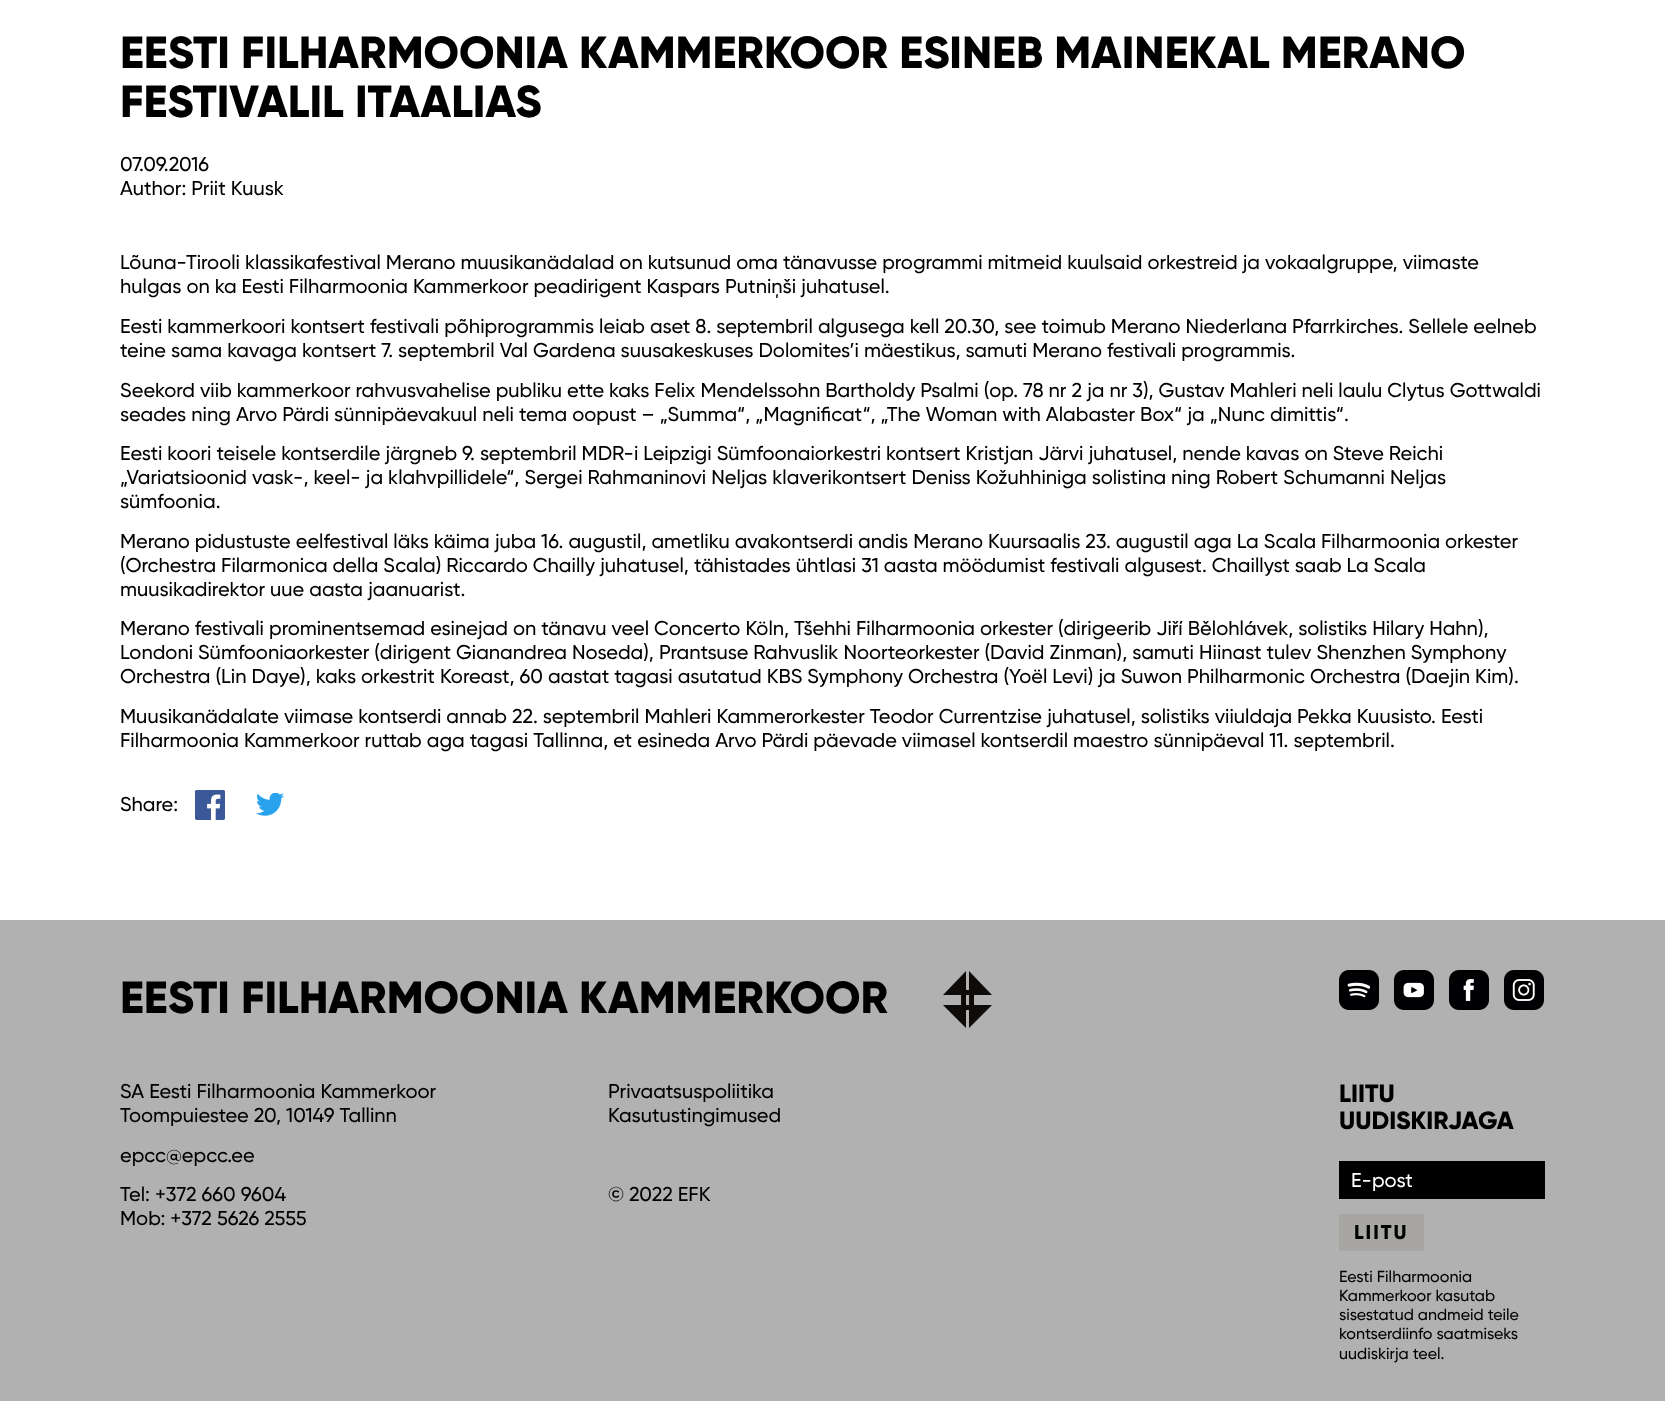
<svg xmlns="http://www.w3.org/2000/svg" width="1665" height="1401">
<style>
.a{font:800 45px Gilroy;fill:#000}
.b{font:500 20px Gilroy;fill:#000}
.c{font:800 25px Gilroy;fill:#000}
.d{font:500 20px Gilroy;fill:#fff}
.e{font:800 20px Gilroy;letter-spacing:2px;fill:#000}
.f{font:500 16px Gilroy;fill:#000}
</style>
<rect width="100%" height="100%" fill="#fff"/>
<image href="1.png" x="195" y="790" width="30" height="30"/>
<image href="2.png" x="256" y="793" width="28" height="23"/>
<path fill="#b1b1b1" d="M0 920h1665v481H0z"/>
<path fill="#0f0b08" d="M969 1010h-3v18l-23-23h18v-10h-18l23-24v19h3v-19l23 24h-18v10h18l-23 23zm-3-15v10h3v-10z"/>
<image href="3.png" x="1339" y="970" width="40" height="40"/>
<image href="4.png" x="1394" y="970" width="40" height="40"/>
<image href="5.png" x="1449" y="970" width="40" height="40"/>
<image href="6.png" x="1504" y="970" width="40" height="40"/>
<path fill="#000" d="M1339 1161h206v38H1339z"/>
<path fill="#a7a6a2" d="M1339 1214h85v37H1339z"/>
<text class="a" x="120" y="68">EESTI FILHARMOONIA KAMMERKOOR ESINEB MAINEKAL MERANO</text>
<text class="a" x="120" y="117">FESTIVALIL ITAALIAS</text>
<text class="b" x="120" y="171">07.09.2016</text>
<text class="b" x="120" y="195">Author: Priit Kuusk</text>
<text class="b" x="120" y="269">Lõuna-Tirooli klassikafestival Merano muusikanädalad on kutsunud oma tänavusse programmi mitmeid kuulsaid orkestreid ja vokaalgruppe, viimaste</text>
<text class="b" x="120" y="293">hulgas on ka Eesti Filharmoonia Kammerkoor peadirigent Kaspars Putniņši juhatusel.</text>
<text class="b" x="120" y="333">Eesti kammerkoori kontsert festivali põhiprogrammis leiab aset 8. septembril algusega kell 20.30, see toimub Merano Niederlana Pfarrkirches. Sellele eelneb</text>
<text class="b" x="120" y="357">teine sama kavaga kontsert 7. septembril Val Gardena suusakeskuses Dolomites’i mäestikus, samuti Merano festivali programmis.</text>
<text class="b" x="120" y="397">Seekord viib kammerkoor rahvusvahelise publiku ette kaks Felix Mendelssohn Bartholdy Psalmi (op. 78 nr 2 ja nr 3), Gustav Mahleri neli laulu Clytus Gottwaldi</text>
<text class="b" x="120" y="421">seades ning Arvo Pärdi sünnipäevakuul neli tema oopust – „Summa“, „Magnificat“, „The Woman with Alabaster Box“ ja „Nunc dimittis“.</text>
<text class="b" x="120" y="460">Eesti koori teisele kontserdile järgneb 9. septembril MDR-i Leipzigi Sümfoonaiorkestri kontsert Kristjan Järvi juhatusel, nende kavas on Steve Reichi</text>
<text class="b" x="120" y="484">„Variatsioonid vask-, keel- ja klahvpillidele“, Sergei Rahmaninovi Neljas klaverikontsert Deniss Kožuhhiniga solistina ning Robert Schumanni Neljas</text>
<text class="b" x="120" y="508">sümfoonia.</text>
<text class="b" x="120" y="548">Merano pidustuste eelfestival läks käima juba 16. augustil, ametliku avakontserdi andis Merano Kuursaalis 23. augustil aga La Scala Filharmoonia orkester</text>
<text class="b" x="120" y="572">(Orchestra Filarmonica della Scala) Riccardo Chailly juhatusel, tähistades ühtlasi 31 aasta möödumist festivali algusest. Chaillyst saab La Scala</text>
<text class="b" x="120" y="596">muusikadirektor uue aasta jaanuarist.</text>
<text class="b" x="120" y="635">Merano festivali prominentsemad esinejad on tänavu veel Concerto Köln, Tšehhi Filharmoonia orkester (dirigeerib Jiří Bělohlávek, solistiks Hilary Hahn),</text>
<text class="b" x="120" y="659">Londoni Sümfooniaorkester (dirigent Gianandrea Noseda), Prantsuse Rahvuslik Noorteorkester (David Zinman), samuti Hiinast tulev Shenzhen Symphony</text>
<text class="b" x="120" y="683">Orchestra (Lin Daye), kaks orkestrit Koreast, 60 aastat tagasi asutatud KBS Symphony Orchestra (Yoël Levi) ja Suwon Philharmonic Orchestra (Daejin Kim).</text>
<text class="b" x="120" y="723">Muusikanädalate viimase kontserdi annab 22. septembril Mahleri Kammerorkester Teodor Currentzise juhatusel, solistiks viiuldaja Pekka Kuusisto. Eesti</text>
<text class="b" x="120" y="747">Filharmoonia Kammerkoor ruttab aga tagasi Tallinna, et esineda Arvo Pärdi päevade viimasel kontserdil maestro sünnipäeval 11. septembril.</text>
<text class="b" x="120" y="811">Share:</text>
<text class="a" x="120" y="1013">EESTI FILHARMOONIA KAMMERKOOR</text>
<text class="b" x="120" y="1098">SA Eesti Filharmoonia Kammerkoor</text>
<text class="b" x="120" y="1122">Toompuiestee 20, 10149 Tallinn</text>
<text class="b" x="120" y="1162">epcc@epcc.ee</text>
<text class="b" x="120" y="1201">Tel: +372 660 9604</text>
<text class="b" x="120" y="1225">Mob: +372 5626 2555</text>
<text class="b" x="608" y="1098">Privaatsuspoliitika</text>
<text class="b" x="608" y="1122">Kasutustingimused</text>
<text class="b" x="608" y="1201">© 2022 EFK</text>
<text class="c" x="1339" y="1102">LIITU</text>
<text class="c" x="1339" y="1129">UUDISKIRJAGA</text>
<text class="d" x="1351" y="1187">E-post</text>
<text class="e" x="1354" y="1239">LIITU</text>
<text class="f" x="1339" y="1282">Eesti Filharmoonia</text>
<text class="f" x="1339" y="1301">Kammerkoor kasutab</text>
<text class="f" x="1339" y="1320">sisestatud andmeid teile</text>
<text class="f" x="1339" y="1339">kontserdiinfo saatmiseks</text>
<text class="f" x="1339" y="1359">uudiskirja teel.</text>
</svg>
